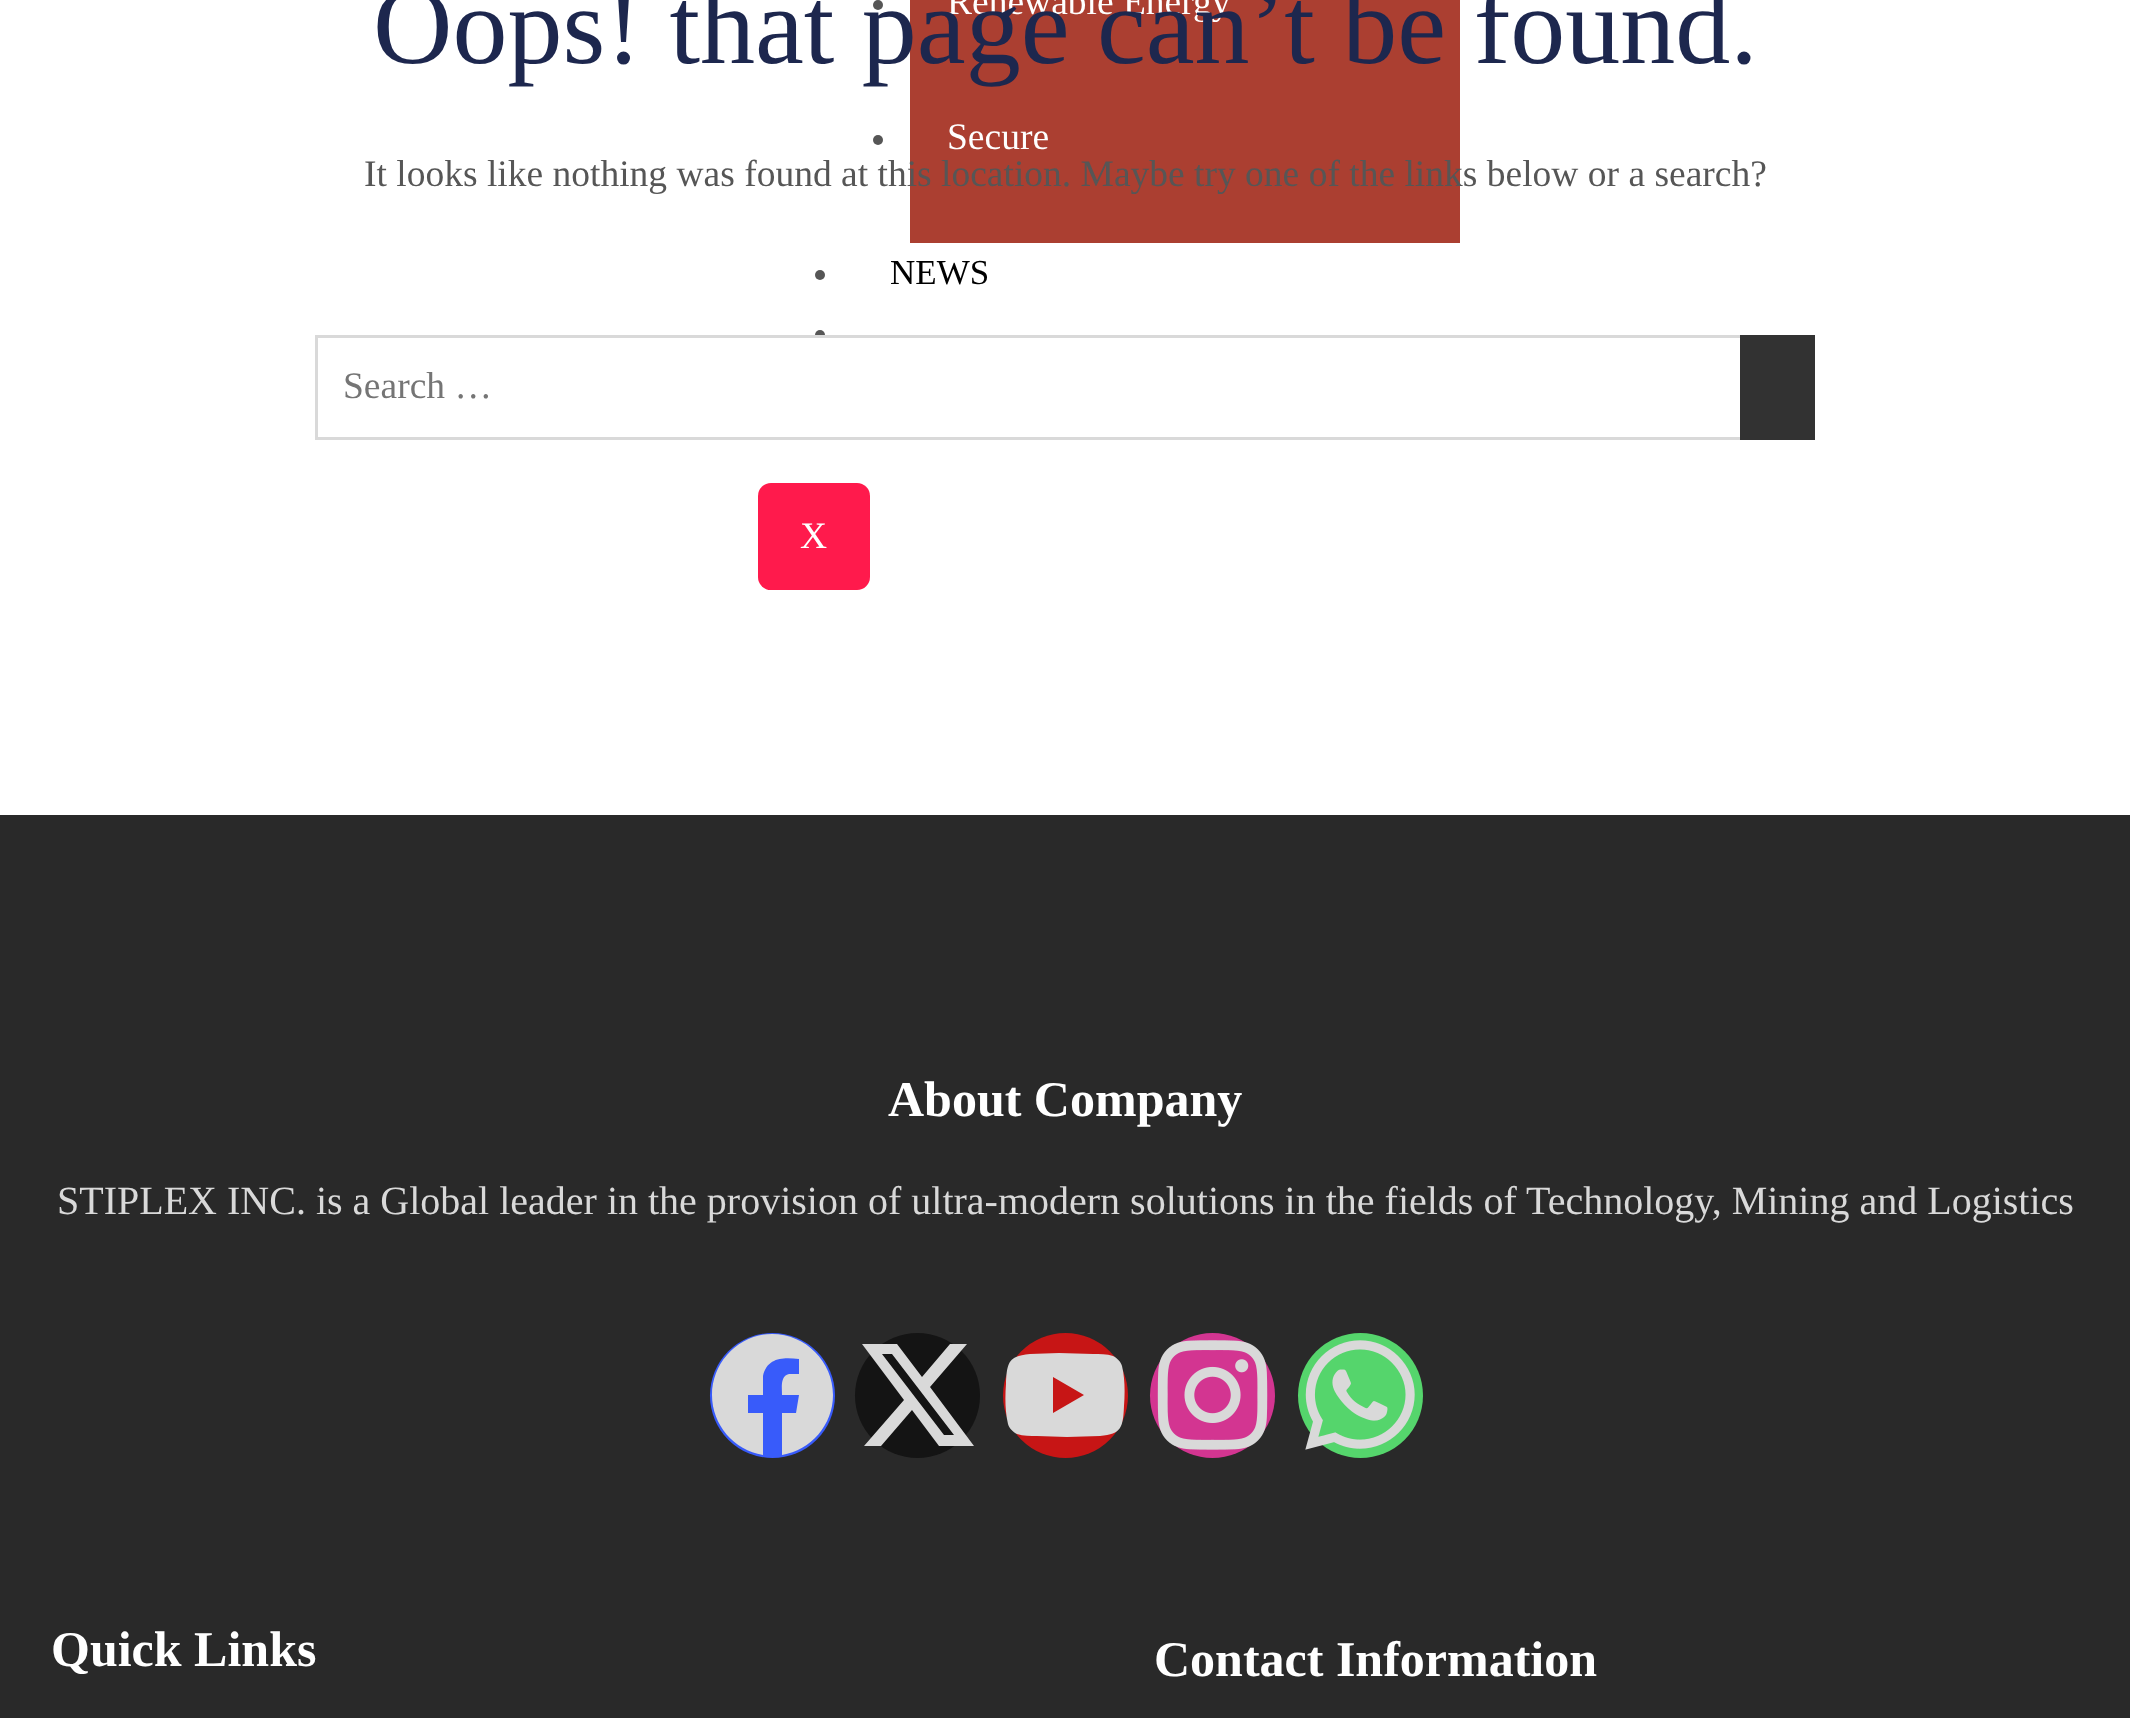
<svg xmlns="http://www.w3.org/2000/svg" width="2130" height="1718">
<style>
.a{font:37.5px Liberation Serif;fill:#565656}
.b{font:37.5px Liberation Serif;fill:#757575}
.c{font:37.5px Liberation Serif;fill:#fff}
.d{font:110px Liberation Serif;fill:#1d274e}
.e{font:35px Liberation Serif;fill:#000}
.f{font:bold 50px Liberation Serif;fill:#fff}
.g{font:40px Liberation Serif;fill:#d9d9d9}
</style>
<rect width="100%" height="100%" fill="#fff"/>
<circle fill="#565656" cx="820" cy="335" r="5"/>
<path fill="#fff" d="M816 338h8v2H816z"/>
<path fill="none" stroke="#d9d9d9" stroke-width="3" d="M316.5 336.5h1497v102H316.5z"/>
<path fill="#323232" d="M1740 335h75v105H1740z"/>
<path fill="#ab3f31" d="M910 0h550v243H910z"/>
<circle fill="#565656" cx="878" cy="5" r="5"/>
<circle fill="#565656" cx="878" cy="140" r="5"/>
<circle fill="#565656" cx="820" cy="275" r="5"/>
<rect fill="#ff1a4c" x="758" y="483" width="112" height="107" rx="13"/>
<path fill="#292929" d="M0 815h2130v903H0z"/>
<circle fill="#385bfa" cx="772.5" cy="1395.5" r="62.5"/>
<path fill="#d9d9d9" d="M833 1395c0-33-27-61-61-61c-33 0-60 28-60 61c0 30 22 55 51 60v-42h-15v-18h15v-19c4-19 21-19 36-17v15h-10c-9 2-7 14-7 21h17l-3 18h-14v42c29-5 51-30 51-60z"/>
<circle fill="#141414" cx="917.5" cy="1395.5" r="62.5"/>
<path fill="#d9d9d9" d="M950 1344h17l-37 43l44 59h-35l-27-36l-31 36h-17l40-46l-42-56h35l25 33zm-6 91h10l-62-81h-10z"/>
<circle fill="#c71515" cx="1065.5" cy="1395.5" r="62.5"/>
<path fill="#d9d9d9" d="M1122 1366c-1-4-5-8-9-10c-6-2-14-2-20-2l-34-1l-29 1c-22 2-23 9-24 30c-1 13-1 27 2 40c1 4 5 8 9 10c6 2 14 2 20 2l30 1l33-1c22-2 23-9 24-30c1-13 1-28-2-40zm-69 47v-36l31 18z"/>
<circle fill="#d33591" cx="1212.5" cy="1395.5" r="62.5"/>
<image href="1.png" x="1157" y="1340" width="111" height="110"/>
<circle fill="#55d56c" cx="1360.5" cy="1395.5" r="62.5"/>
<image href="2.png" x="1305" y="1340" width="110" height="110"/>
<text class="a" x="364" y="186">It looks like nothing was found at this location. Maybe try one of the links below or a search?</text>
<text class="b" x="343" y="398">Search …</text>
<text class="c" x="947" y="14">Renewable Energy</text>
<text class="d" x="373" y="63">Oops! that page can’t be found.</text>
<text class="c" x="947" y="149">Secure</text>
<text class="e" x="890" y="284">NEWS</text>
<text class="c" x="800" y="548">X</text>
<text class="f" x="888" y="1116">About Company</text>
<text class="g" x="57" y="1214">STIPLEX INC. is a Global leader in the provision of ultra-modern solutions in the fields of Technology, Mining and Logistics</text>
<text class="f" x="51" y="1666">Quick Links</text>
<text class="f" x="1154" y="1676">Contact Information</text>
</svg>
